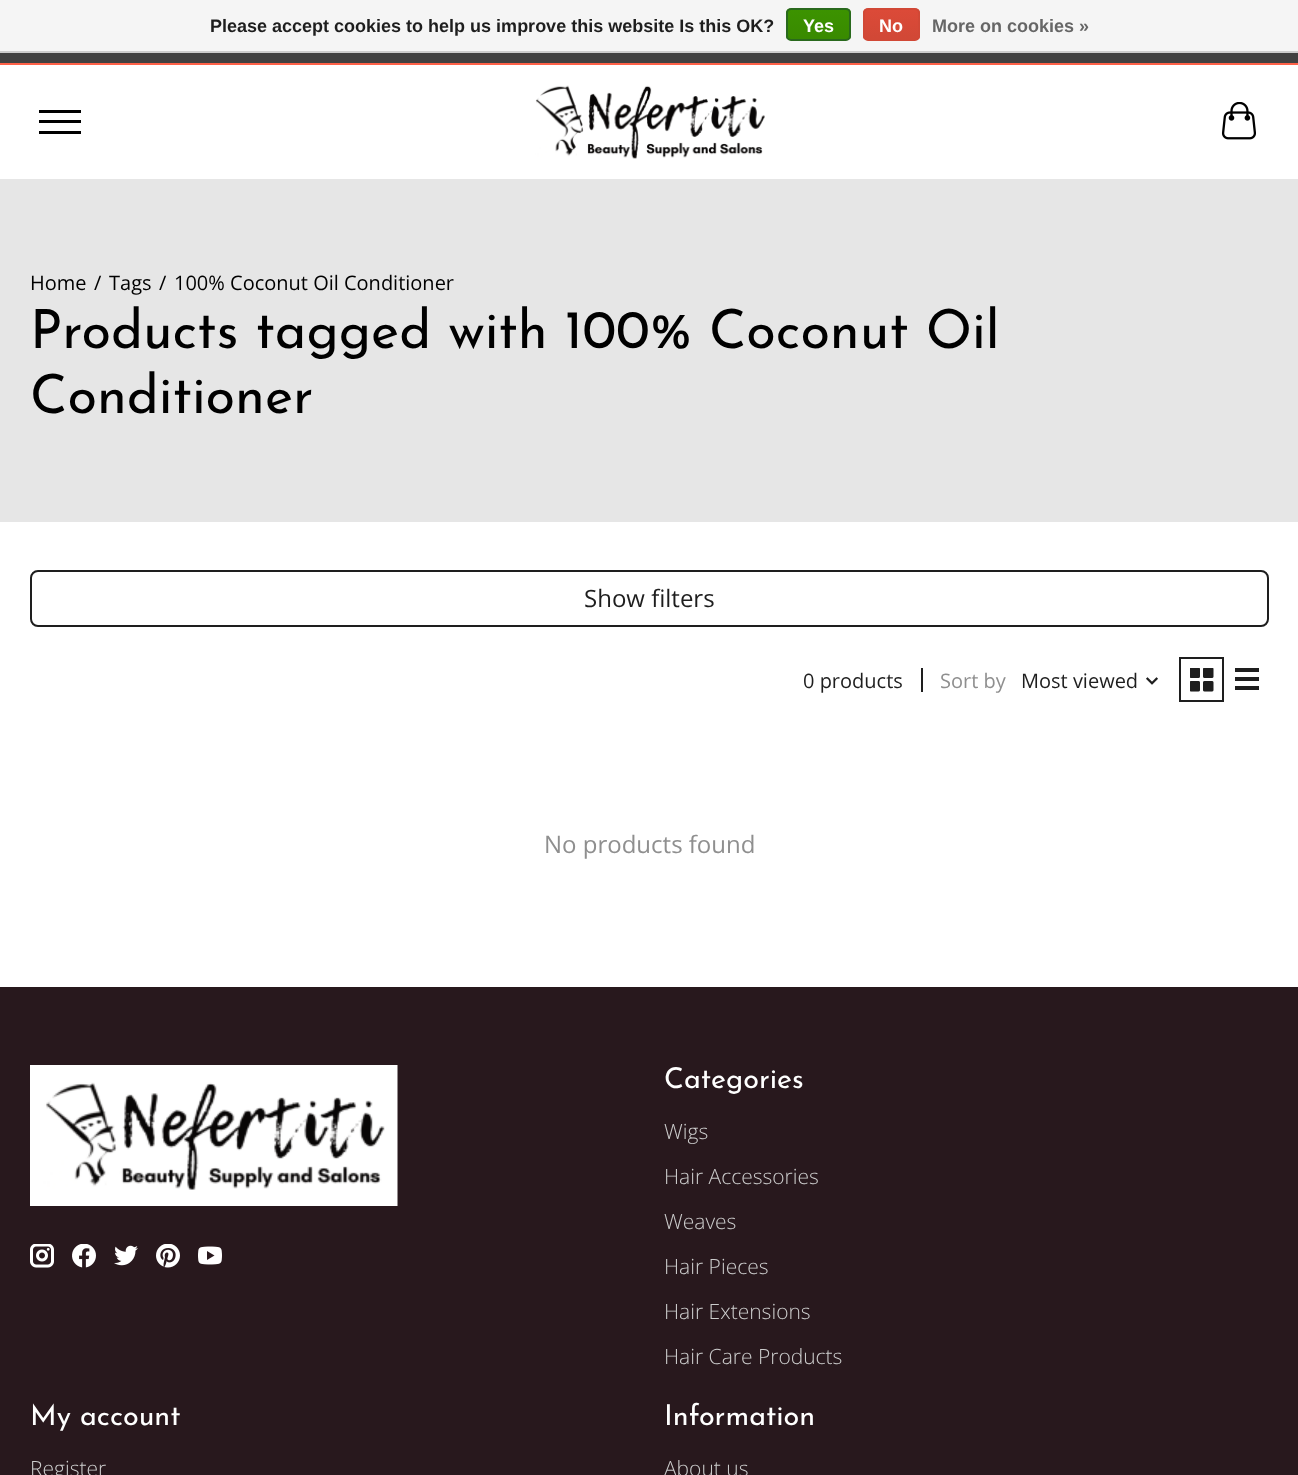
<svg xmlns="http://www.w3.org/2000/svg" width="1298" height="1475">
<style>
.a{font:bold 18px Liberation Sans;fill:#1e1e1e}
.b{font:bold 18px Liberation Sans;fill:#fff}
.c{font:bold 18px Liberation Sans;fill:#666}
.d{font:20px Open Sans;fill:#000}
.e{font:54px Josefin Sans;fill:#000}
.f{font:24px Open Sans;fill:#1e1e1e}
.g{font:20px Open Sans;fill:#1e1e1e}
.h{font:20px Open Sans;fill:#8f8f8f}
.i{font:24px Open Sans;fill:#8f8f8f}
.j{font:28.75px Josefin Sans;fill:#fff}
.k{font:300 21px Open Sans;fill:#ccc}
</style>
<defs>
<clipPath id="clip1"><rect x="786" y="8" width="65" height="33" rx="5"/></clipPath>
<linearGradient id="g1" gradientUnits="userSpaceOnUse" x1="818" y1="9" x2="818" y2="39"><stop offset="0" stop-color="#3c9300"/><stop offset="1" stop-color="#398a00"/></linearGradient>
<clipPath id="clip2"><rect x="863" y="8" width="57" height="33" rx="5"/></clipPath>
<linearGradient id="g2" gradientUnits="userSpaceOnUse" x1="891" y1="9" x2="891" y2="39"><stop offset="0" stop-color="#dc4a38"/><stop offset="1" stop-color="#d14836"/></linearGradient>
</defs>
<rect width="100%" height="100%" fill="#fff"/>
<path fill="#f5f5f5" d="M0 0h1298v51H0z"/>
<path fill="#ccc" d="M0 51h1298v2H0z"/>
<g clip-path="url(#clip1)">
<path fill="url(#g1)" d="M786 9h65v30H786z"/>
</g>
<rect fill="none" stroke="#29691d" stroke-width="2" x="787" y="9" width="63" height="31" rx="4"/>
<g clip-path="url(#clip2)">
<path fill="url(#g2)" d="M863 9h57v30H863z"/>
</g>
<rect fill="none" stroke="#d14836" stroke-width="2" x="864" y="9" width="55" height="31" rx="4"/>
<path fill="#414141" d="M0 53h1298v10H0z"/>
<path fill="#fe6148" d="M0 63h1298v2H0z"/>
<path fill="#000" d="M39 120h42v3H39z"/>
<path fill="#000" d="M39 110h42v3H39z"/>
<path fill="#000" d="M39 131h42v3H39z"/>
<image href="1.png" x="535" y="85" width="230" height="74"/>
<image href="2.png" x="1221" y="102" width="35" height="38"/>
<path fill="#e6e6e6" d="M0 179h1298v343H0z"/>
<rect fill="none" stroke="#1e1e1e" stroke-width="2" x="31" y="571" width="1237" height="55" rx="7"/>
<path fill="#1e1e1e" d="M921 668h2v24H921z"/>
<image href="3.png" x="1146" y="677" width="12" height="8"/>
<path fill="none" stroke="#1e1e1e" stroke-width="2" d="M1180 658h43v43H1180z"/>
<image href="4.png" x="1190" y="668" width="24" height="24"/>
<path fill="#1e1e1e" d="M1235 668h24v4H1235z"/>
<path fill="#1e1e1e" d="M1235 677h24v4H1235z"/>
<path fill="#1e1e1e" d="M1235 686h24v4H1235z"/>
<path fill="#28181d" d="M0 987h1298v488H0z"/>
<image href="5.png" x="30" y="1065" width="368" height="141"/>
<image href="6.png" x="30" y="1244" width="24" height="24"/>
<image href="7.png" x="72" y="1244" width="24" height="24"/>
<image href="8.png" x="114" y="1245" width="24" height="21"/>
<image href="9.png" x="156" y="1244" width="24" height="24"/>
<image href="10.png" x="198" y="1246" width="24" height="19"/>
<text class="a" x="210" y="32">Please accept cookies to help us improve this website Is this OK?</text>
<text class="b" x="803" y="32">Yes</text>
<text class="b" x="879" y="32">No</text>
<text class="c" x="932" y="32">More on cookies »</text>
<text class="d" x="30" y="290">Home</text>
<text class="d" x="94" y="290">/</text>
<text class="d" x="109" y="290">Tags</text>
<text class="d" x="159" y="290">/</text>
<text class="d" x="174" y="290">100% Coconut Oil Conditioner</text>
<text class="e" x="30" y="348">Products tagged with 100% Coconut Oil</text>
<text class="e" x="30" y="413">Conditioner</text>
<text class="f" x="584" y="607">Show filters</text>
<text class="g" x="803" y="688">0 products</text>
<text class="h" x="940" y="688">Sort by</text>
<text class="g" x="1021" y="688">Most viewed</text>
<text class="i" x="544" y="853">No products found</text>
<text class="j" x="664" y="1088">Categories</text>
<text class="k" x="664" y="1139">Wigs</text>
<text class="k" x="664" y="1184">Hair Accessories</text>
<text class="k" x="664" y="1229">Weaves</text>
<text class="k" x="664" y="1274">Hair Pieces</text>
<text class="k" x="664" y="1319">Hair Extensions</text>
<text class="k" x="664" y="1364">Hair Care Products</text>
<text class="j" x="30" y="1425">My account</text>
<text class="k" x="30" y="1476">Register</text>
<text class="j" x="664" y="1425">Information</text>
<text class="k" x="664" y="1476">About us</text>
</svg>
